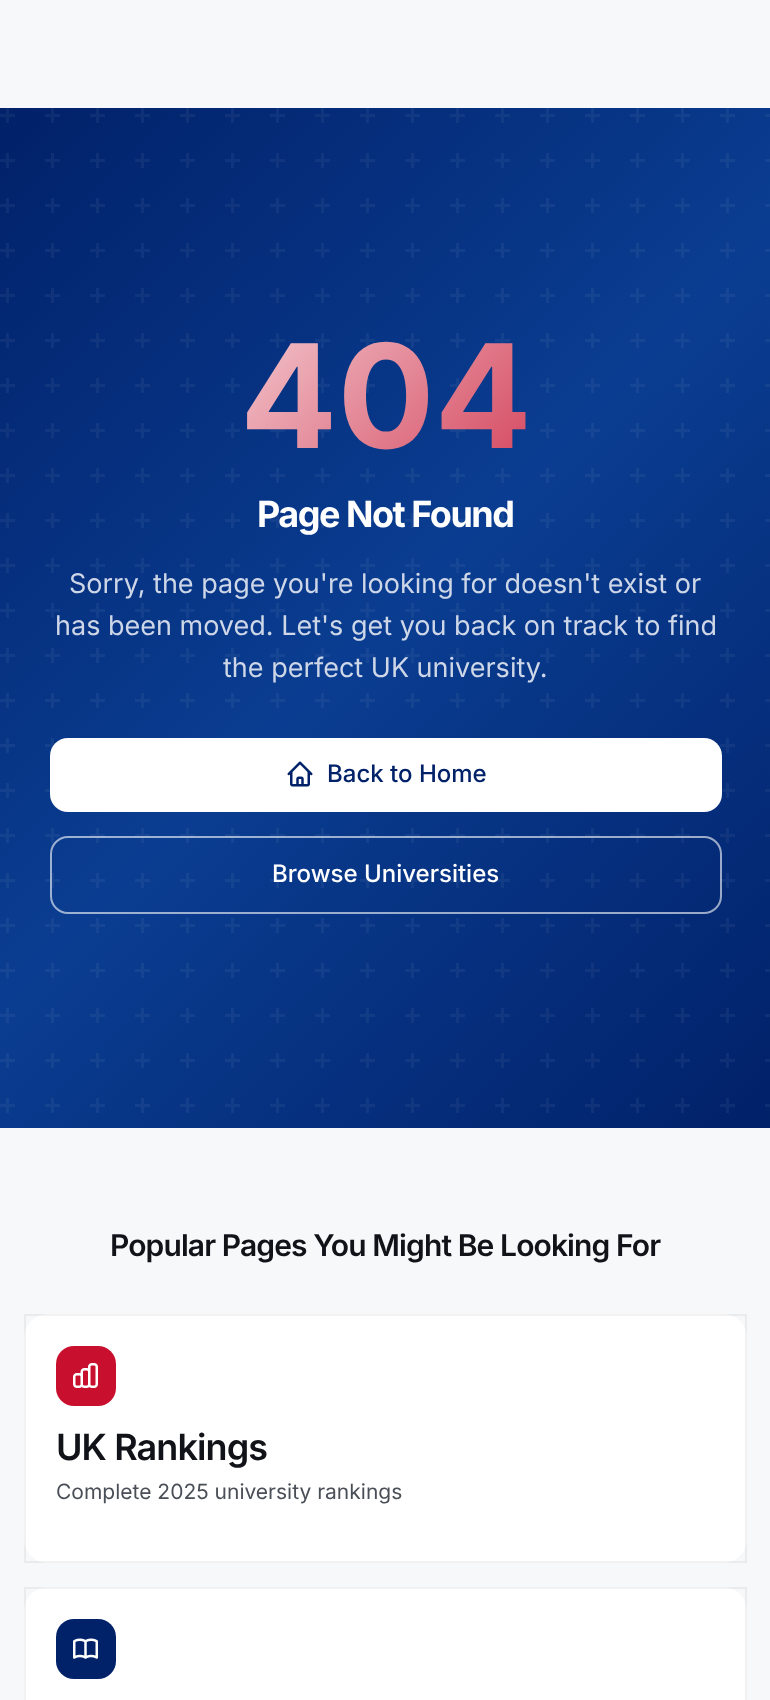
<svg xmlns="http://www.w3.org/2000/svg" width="770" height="1700">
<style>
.a{font:bold 144px Inter;fill:url(#g1)}
.b{font:bold 36px Inter;letter-spacing:-1.5px;fill:#fff}
.c{font:27px Inter;fill:#ced7e8}
.d{font:500 24px Inter;fill:#012169}
.e{font:500 24px Inter;fill:#fff}
.f{font:600 30px Inter;letter-spacing:-0.9px;fill:#111318}
.g{font:600 36px Inter;letter-spacing:-0.9px;fill:#111318}
.h{font:21px Inter;fill:#4a4f57}
</style>
<defs>
<linearGradient id="g1" gradientUnits="userSpaceOnUse" x1="182" y1="191" x2="590" y2="599"><stop offset="0" stop-color="#fff"/><stop offset="1" stop-color="#c8102e"/></linearGradient>
<linearGradient id="g2" gradientUnits="userSpaceOnUse" x1="-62" y1="170" x2="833" y2="1066"><stop offset="0" stop-color="#012169"/><stop offset="0.5" stop-color="#0a3d91"/><stop offset="1" stop-color="#012169"/></linearGradient>
</defs>
<rect width="100%" height="100%" fill="#f7f8fa"/>
<path fill="url(#g2)" d="M0 108h770v1020H0z"/>
<image href="1.png" x="0" y="108" width="770" height="1005"/>
<rect fill="#fff" x="50" y="738" width="672" height="74" rx="18"/>
<image href="2.png" x="287" y="761" width="26" height="26"/>
<rect fill="none" stroke="#ffffff99" stroke-width="2" x="51" y="837" width="670" height="76" rx="17"/>
<rect fill="#fff" x="24" y="1314" width="723" height="249" rx="24"/>
<path fill="none" stroke="#0000000d" stroke-width="2" d="M25 1315h721v247H25z"/>
<rect fill="#c8102e" x="56" y="1346" width="60" height="60" rx="18"/>
<image href="3.png" x="73" y="1363" width="25" height="25"/>
<rect fill="#fff" x="24" y="1587" width="723" height="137" rx="24"/>
<path fill="none" stroke="#0000000d" stroke-width="2" d="M25 1588h721v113H25z"/>
<rect fill="#012169" x="56" y="1619" width="60" height="60" rx="18"/>
<image href="4.png" x="73" y="1638" width="25" height="21"/>
<text class="a" x="240" y="448">404</text>
<text class="b" x="257" y="527">Page Not Found</text>
<text class="c" x="69" y="593">Sorry, the page you're looking for doesn't exist or</text>
<text class="c" x="55" y="635">has been moved. Let's get you back on track to find</text>
<text class="c" x="223" y="677">the perfect UK university.</text>
<text class="d" x="327" y="782">Back to Home</text>
<text class="e" x="272" y="882">Browse Universities</text>
<text class="f" x="110" y="1256">Popular Pages You Might Be Looking For</text>
<text class="g" x="56" y="1460">UK Rankings</text>
<text class="h" x="56" y="1499">Complete 2025 university rankings</text>
</svg>
